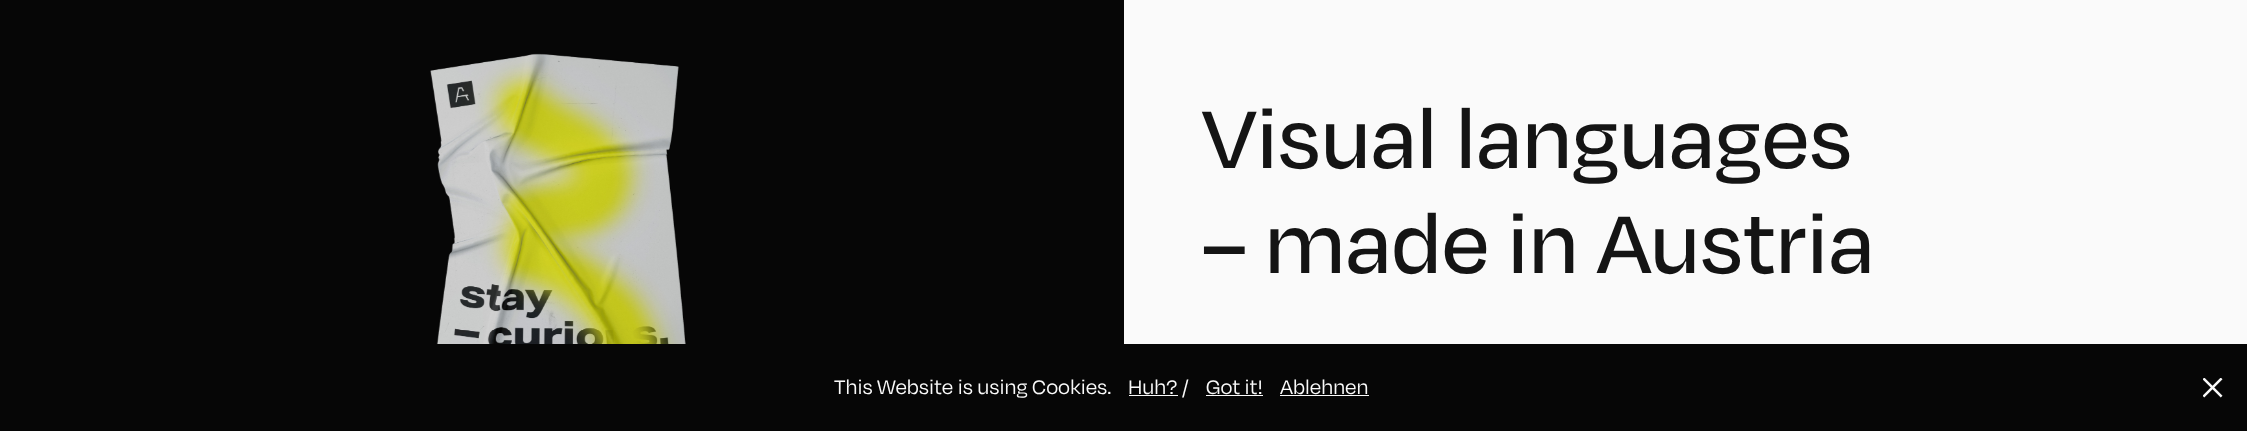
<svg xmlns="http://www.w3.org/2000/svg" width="2247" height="431">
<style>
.a{font:500 93.75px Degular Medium;fill:#141414}
.b{font:22.5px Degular;fill:#fafafa}
</style>
<rect width="100%" height="100%" fill="#fafafa"/>
<path fill="#060606" d="M0 0h1124v344H0z"/>
<image href="1.png" x="430" y="53" width="258" height="291"/>
<path fill="#060606" d="M0 344h2247v87H0z"/>
<path fill="#fafafa" d="M1129 395h49v1H1129z"/>
<path fill="#fafafa" d="M1206 395h57v1H1206z"/>
<path fill="#fafafa" d="M1280 395h89v1H1280z"/>
<image href="2.png" x="2203" y="378" width="20" height="20"/>
<text class="a" x="1202" y="168">Visual languages</text>
<text class="a" x="1202" y="273">– made in Austria</text>
<text class="b" x="834" y="394">This Website is using Cookies.</text>
<text class="b" x="1128" y="394">Huh? /</text>
<text class="b" x="1206" y="394">Got it!</text>
<text class="b" x="1280" y="394">Ablehnen</text>
</svg>
